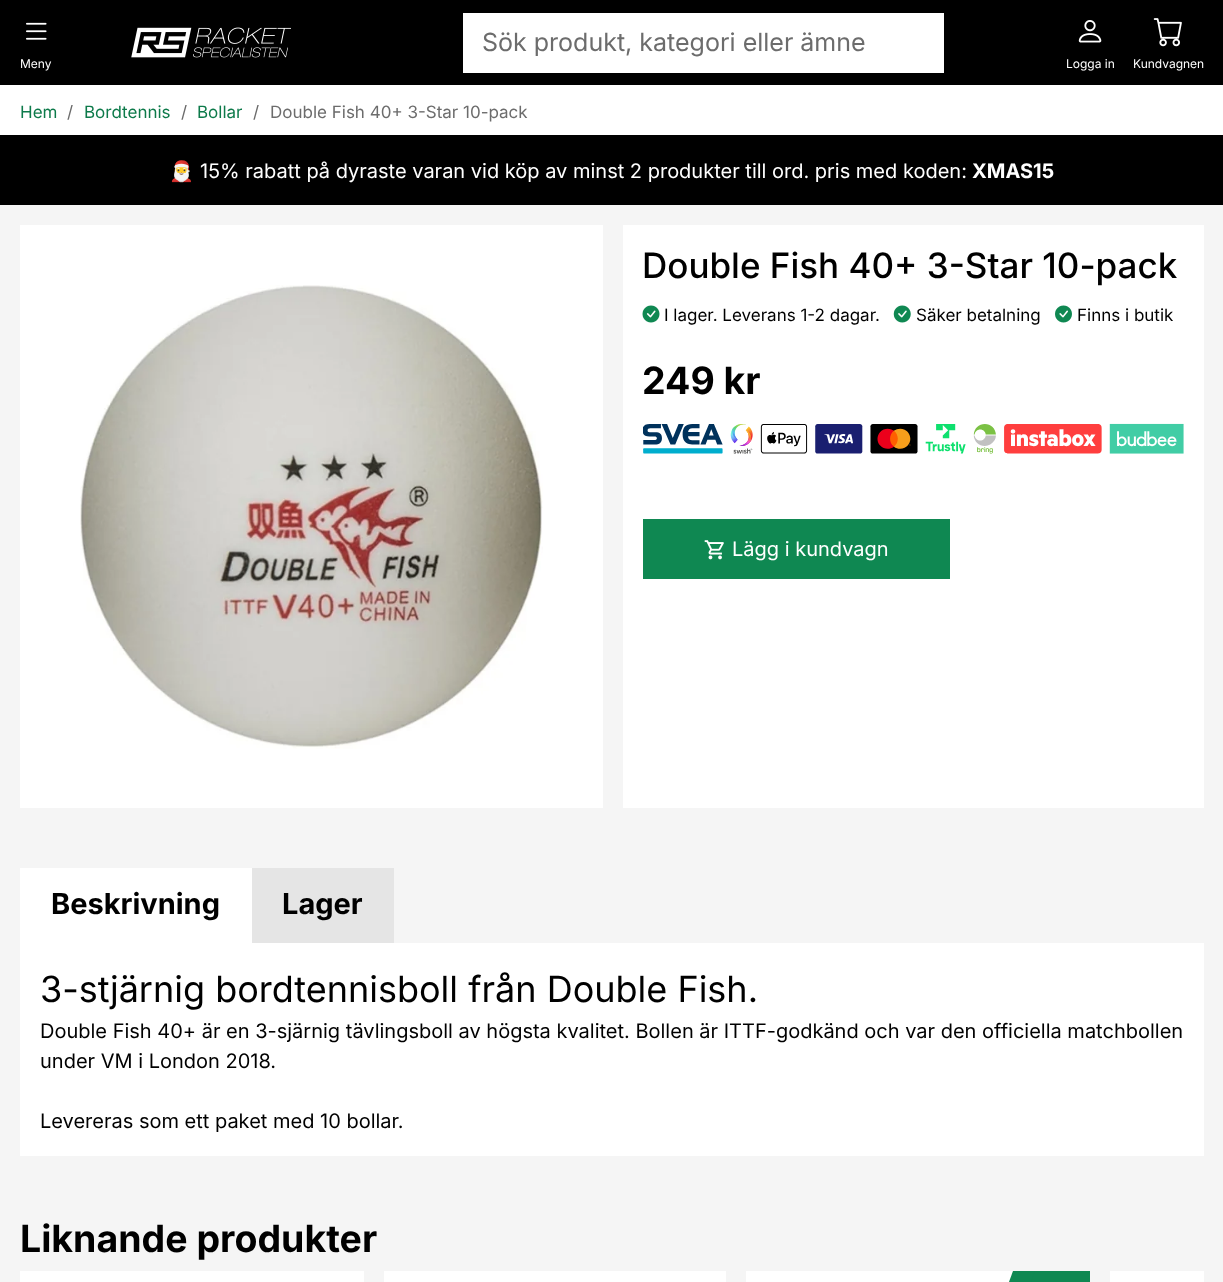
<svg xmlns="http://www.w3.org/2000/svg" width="1223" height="1282">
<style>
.a{font:25px Inter;fill:#6c6c6c}
.b{font:12px Inter;fill:#fff}
.c{font:17px Inter;fill:#0d7a4a}
.d{font:17px Inter;fill:#6c6c6c}
.e{font:20px Noto Color Emoji;fill:#fff}
.f{font:20px Inter;fill:#fff}
.g{font:bold 20px Inter;fill:#fff}
.h{font:500 35px Inter;fill:#000}
.i{font:17px Inter;fill:#000}
.j{font:bold 37.5px Inter;fill:#000}
.k{font:bold 29px Inter;fill:#000}
.l{font:36px Inter;fill:#000}
.m{font:20px Inter;fill:#000}
</style>
<rect width="100%" height="100%" fill="#f5f5f5"/>
<path fill="#000" d="M0 0h1223v85H0z"/>
<image href="1.png" x="131" y="27" width="160" height="31"/>
<path fill="#fff" d="M463 13h481v60H463z"/>
<image href="2.png" x="26" y="22" width="21" height="18"/>
<image href="3.png" x="1078" y="20" width="24" height="23"/>
<image href="4.png" x="1153" y="18" width="29" height="29"/>
<path fill="#fff" d="M0 85h1223v50H0z"/>
<path fill="#000" d="M0 135h1223v70H0z"/>
<path fill="#fff" d="M20 225h583v583H20z"/>
<image href="5.png" x="80" y="285" width="463" height="464"/>
<path fill="#fff" d="M623 225h581v583H623z"/>
<image href="6.png" x="642" y="305" width="18" height="18"/>
<image href="7.png" x="893" y="305" width="18" height="18"/>
<image href="8.png" x="1055" y="305" width="17" height="18"/>
<image href="9.png" x="643" y="423" width="541" height="31"/>
<path fill="#0f8852" d="M643 519h307v60H643z"/>
<image href="10.png" x="704" y="540" width="20" height="20"/>
<path fill="#fff" d="M20 868h232v75H20z"/>
<path fill="#e5e5e5" d="M252 868h142v75H252z"/>
<path fill="#fff" d="M20 943h1184v213H20z"/>
<path fill="#fff" d="M20 1271h344v11H20z"/>
<path fill="#fff" d="M384 1271h342v11H384z"/>
<path fill="#fff" d="M746 1271h267v11H746z"/>
<path fill="#0f8852" d="M1031 1271h59v11H1031z"/>
<path fill="#0f8852" d="M1013 1271h22l-13 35.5h-22z"/>
<path fill="#fff" d="M1110 1271h94v11H1110z"/>
<text class="a" x="482" y="51">Sök produkt, kategori eller ämne</text>
<text class="b" x="20" y="68">Meny</text>
<text class="b" x="1066" y="68">Logga in</text>
<text class="b" x="1133" y="68">Kundvagnen</text>
<text class="c" x="20" y="118">Hem</text>
<text class="d" x="67" y="118">/</text>
<text class="c" x="84" y="118">Bordtennis</text>
<text class="d" x="181" y="118">/</text>
<text class="c" x="197" y="118">Bollar</text>
<text class="d" x="253" y="118">/</text>
<text class="d" x="270" y="118">Double Fish 40+ 3-Star 10-pack</text>
<text class="e" x="169" y="178">🎅</text>
<text class="f" x="200" y="178">15% rabatt på dyraste varan vid köp av minst 2 produkter till ord. pris med koden:</text>
<text class="g" x="972" y="178">XMAS15</text>
<text class="h" x="642" y="278">Double Fish 40+ 3-Star 10-pack</text>
<text class="i" x="664" y="321">I lager. Leverans 1-2 dagar.</text>
<text class="i" x="916" y="321">Säker betalning</text>
<text class="i" x="1077" y="321">Finns i butik</text>
<text class="j" x="642" y="394">249 kr</text>
<text class="f" x="732" y="556">Lägg i kundvagn</text>
<text class="k" x="51" y="914">Beskrivning</text>
<text class="k" x="282" y="914">Lager</text>
<text class="l" x="40" y="1002">3-stjärnig bordtennisboll från Double Fish.</text>
<text class="m" x="40" y="1038">Double Fish 40+ är en 3-sjärnig tävlingsboll av högsta kvalitet. Bollen är ITTF-godkänd och var den officiella matchbollen</text>
<text class="m" x="40" y="1068">under VM i London 2018.</text>
<text class="m" x="40" y="1128">Levereras som ett paket med 10 bollar.</text>
<text class="j" x="20" y="1252">Liknande produkter</text>
</svg>
